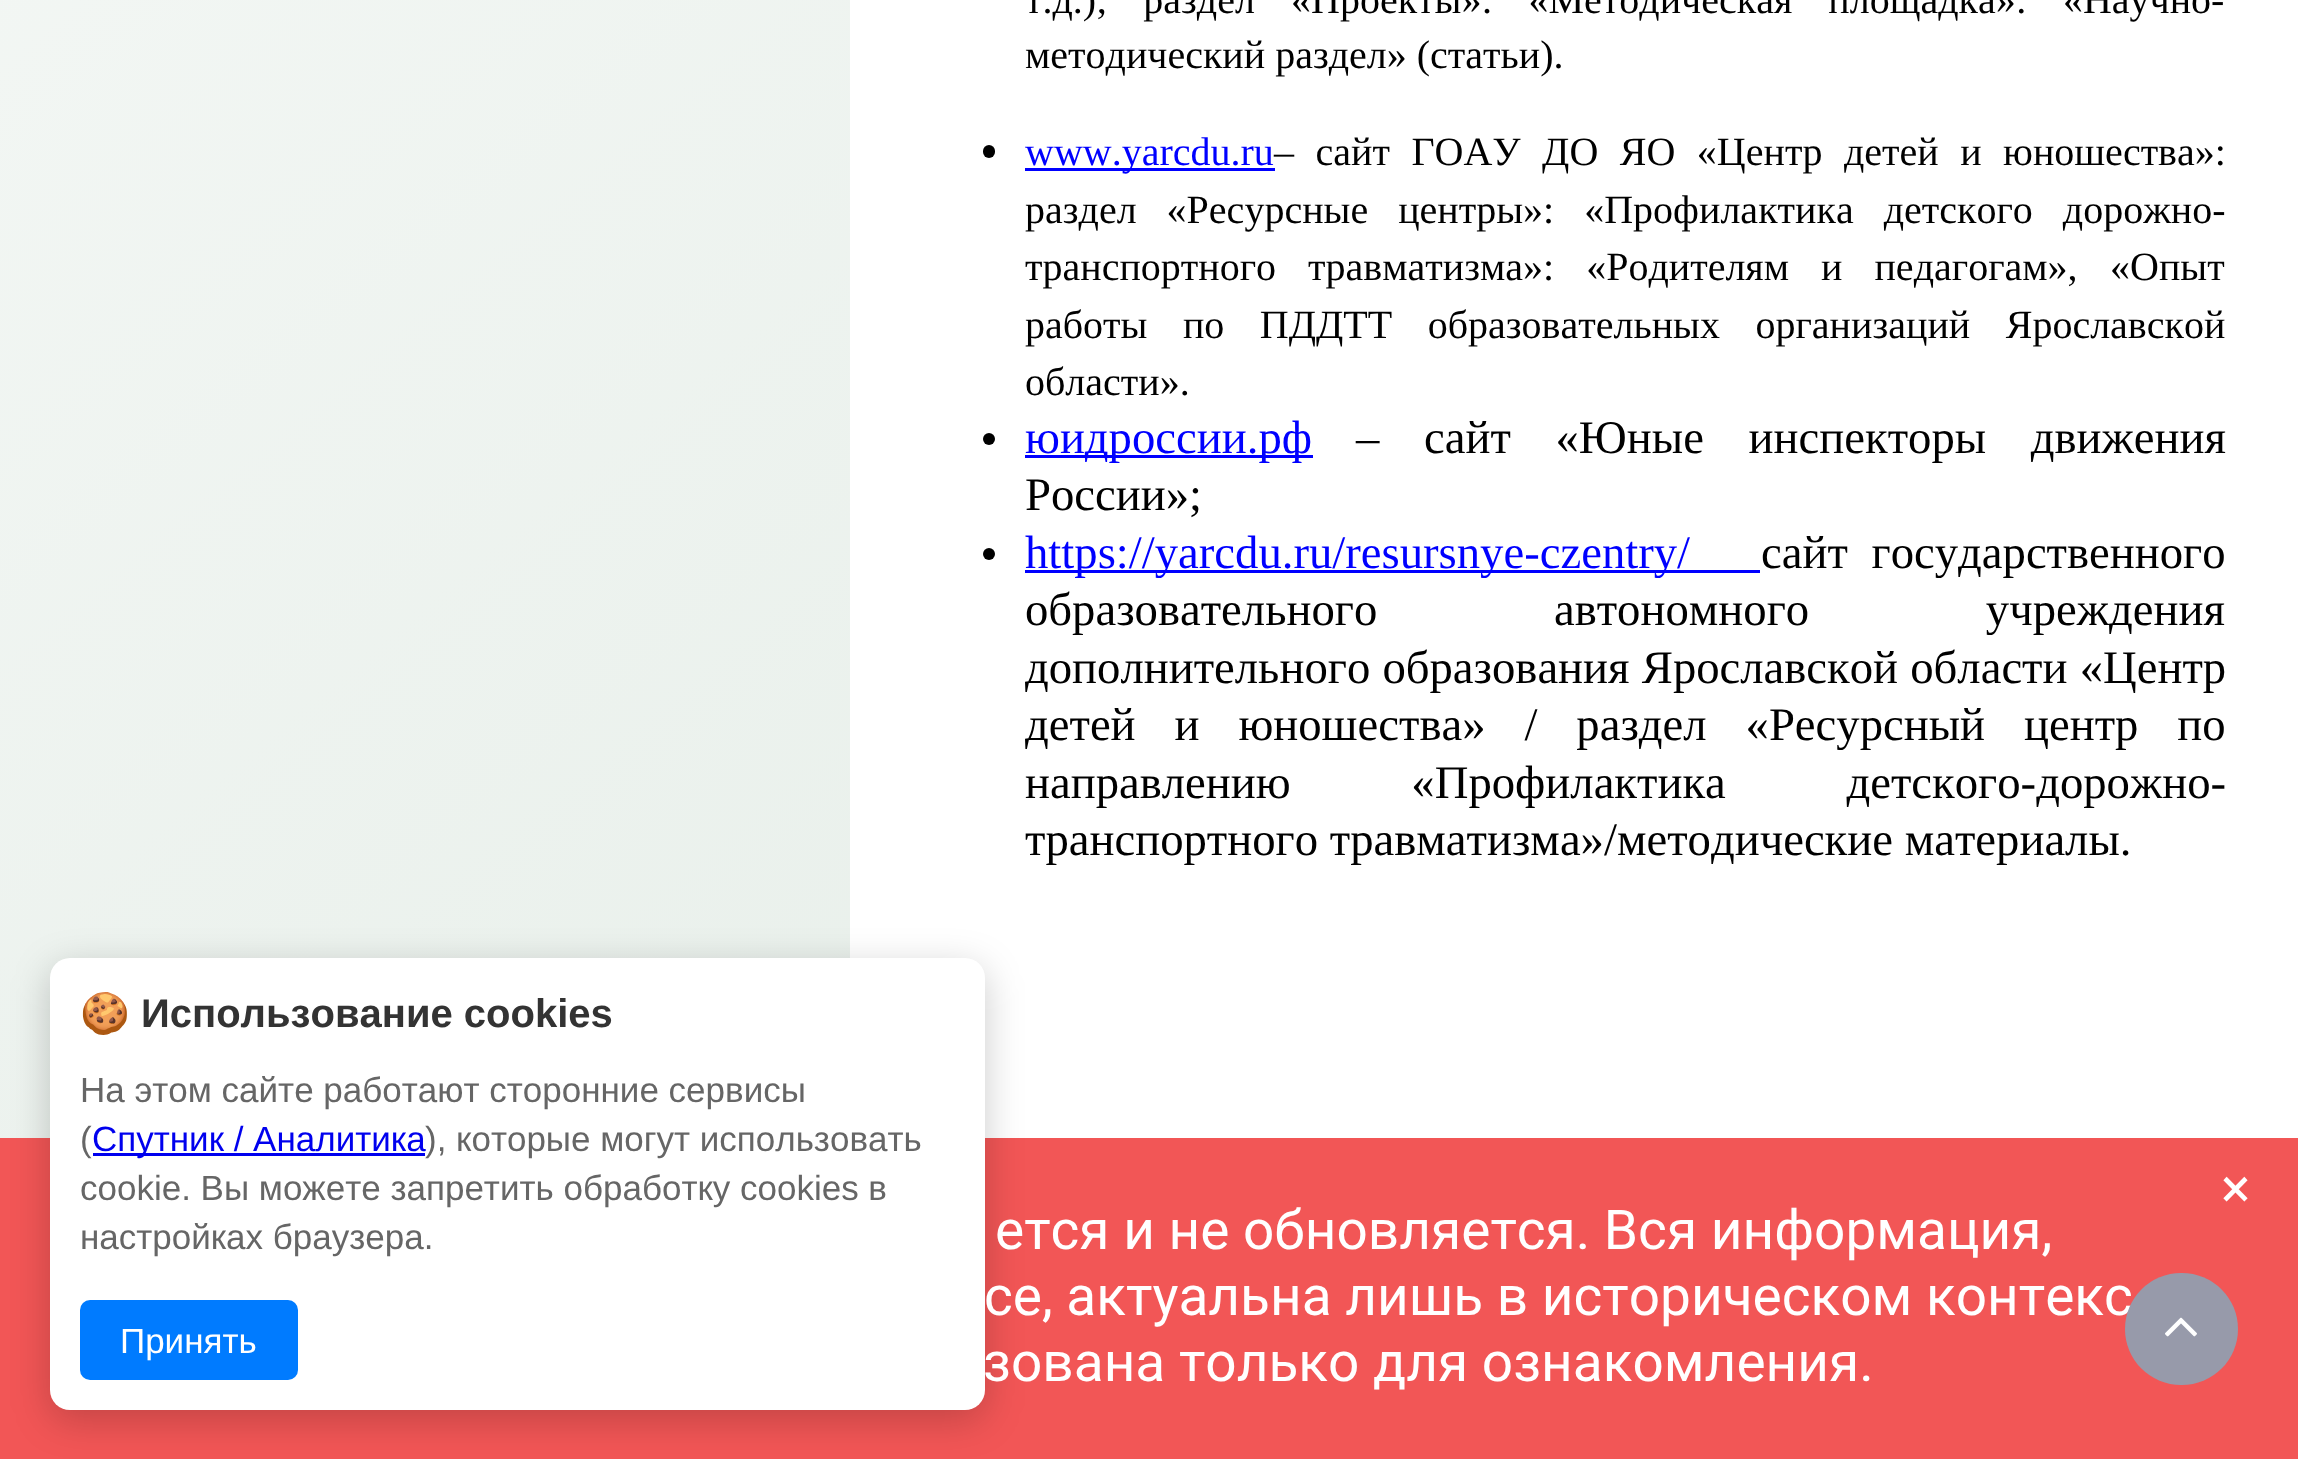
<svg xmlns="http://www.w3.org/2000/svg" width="2298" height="1459">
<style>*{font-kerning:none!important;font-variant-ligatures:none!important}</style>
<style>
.a{font:40px Liberation Serif;fill:#000}
.b{font:40px Liberation Serif;fill:#00f}
.c{font:46.7px Liberation Serif;fill:#00f}
.d{font:46.7px Liberation Serif;fill:#000}
.e{font:bold 40px Noto Color Emoji;fill:#333}
.f{font:bold 40px Liberation Sans;fill:#333}
.g{font:35px Liberation Sans;fill:#666}
.h{font:35px Liberation Sans;fill:#00e}
.i{font:35px Liberation Sans;fill:#fff}
.j{font:55px Roboto;fill:#fff}
</style>
<defs>
<linearGradient id="g1" gradientUnits="userSpaceOnUse" x1="-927" y1="-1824" x2="1284" y2="811"><stop offset="0" stop-color="#fff"/><stop offset="0.99" stop-color="#e9f0eb"/></linearGradient>
</defs>
<rect width="100%" height="100%" fill="#fff"/>
<path fill="url(#g1)" d="M0 0h850v1138H0z"/>
<rect fill="#000" x="983" y="145" width="12" height="13" rx="6"/>
<path fill="#00f" d="M1025 168h250v3H1025z"/>
<circle fill="#000" cx="989" cy="439" r="6"/>
<path fill="#00f" d="M1025 455h288v3H1025z"/>
<circle fill="#000" cx="989" cy="554" r="6"/>
<path fill="#00f" d="M1025 570h735v3H1025z"/>
<path fill="#f25656" d="M0 1138h2298v321H0z"/>
<rect fill="#00000033" filter="blur(19px)" x="50" y="968" width="935" height="452" rx="20"/>
<rect fill="#fff" x="50" y="958" width="935" height="452" rx="20"/>
<path fill="#00e" d="M93 1153h332v3H93z"/>
<rect fill="#007bff" x="80" y="1300" width="218" height="80" rx="10"/>
<text class="a" x="1025" y="13" word-spacing="26">т.д.); раздел</text>
<text class="a" x="1291" y="13" word-spacing="26">«Проекты»: «Методическая площадка»: «Научно-</text>
<text class="a" x="1025" y="68">методический раздел» (статьи).</text>
<text class="b" x="1025" y="165">www.yarcdu.ru</text>
<text class="a" x="1274" y="165" word-spacing="11.5">– сайт ГОАУ ДО ЯО «Центр детей и юношества»:</text>
<text class="a" x="1025" y="223" word-spacing="20">раздел «Ресурсные центры»: «Профилактика детского дорожно-</text>
<text class="a" x="1025" y="280" word-spacing="22">транспортного травматизма»: «Родителям и педагогам»,</text>
<text class="a" x="2110" y="280" word-spacing="22">«Опыт</text>
<text class="a" x="1025" y="338" word-spacing="25.5">работы по ПДДТТ образовательных организаций Ярославской</text>
<text class="a" x="1025" y="395">области».</text>
<text class="c" x="1025" y="453">юидроссии.рф</text>
<text class="d" x="1356" y="453" word-spacing="33">– сайт «Юные инспекторы движения</text>
<text class="d" x="1025" y="510">России»;</text>
<text class="c" x="1025" y="568">https://yarcdu.ru/resursnye-czentry/</text>
<text class="d" x="1761" y="568" word-spacing="12">сайт государственного</text>
<text class="d" x="1025" y="625" word-spacing="165">образовательного автономного учреждения</text>
<text class="d" x="1025" y="683" word-spacing="0.5">дополнительного образования Ярославской области «Центр</text>
<text class="d" x="1025" y="740" word-spacing="27.25">детей и юношества» / раздел «Ресурсный центр по</text>
<text class="d" x="1025" y="798" word-spacing="109">направлению «Профилактика детского-дорожно-</text>
<text class="d" x="1025" y="855">транспортного травматизма»/методические материалы.</text>
<text class="e" x="80" y="1027">🍪</text>
<text class="f" x="141" y="1027">Использование cookies</text>
<text class="g" x="80" y="1102">На этом сайте работают сторонние сервисы</text>
<text class="g" x="80" y="1151">(</text>
<text class="h" x="92" y="1151">Спутник / Аналитика</text>
<text class="g" x="425" y="1151">), которые могут использовать</text>
<text class="g" x="80" y="1200">cookie. Вы можете запретить обработку cookies в</text>
<text class="g" x="80" y="1249">настройках браузера.</text>
<text class="i" x="120" y="1353">Принять</text>
<text class="j" x="2221" y="1207">×</text>
<text class="j" x="995" y="1249">ется и не обновляется. Вся информация,</text>
<text class="j" x="984" y="1315">се, актуальна лишь в историческом контекс</text>
<rect fill="#979aaa" x="2125" y="1273" width="113" height="112" rx="56"/>
<image href="1.png" x="2165" y="1317" width="32" height="20"/>
<text class="j" x="983" y="1381">зована только для ознакомления.</text>
</svg>
